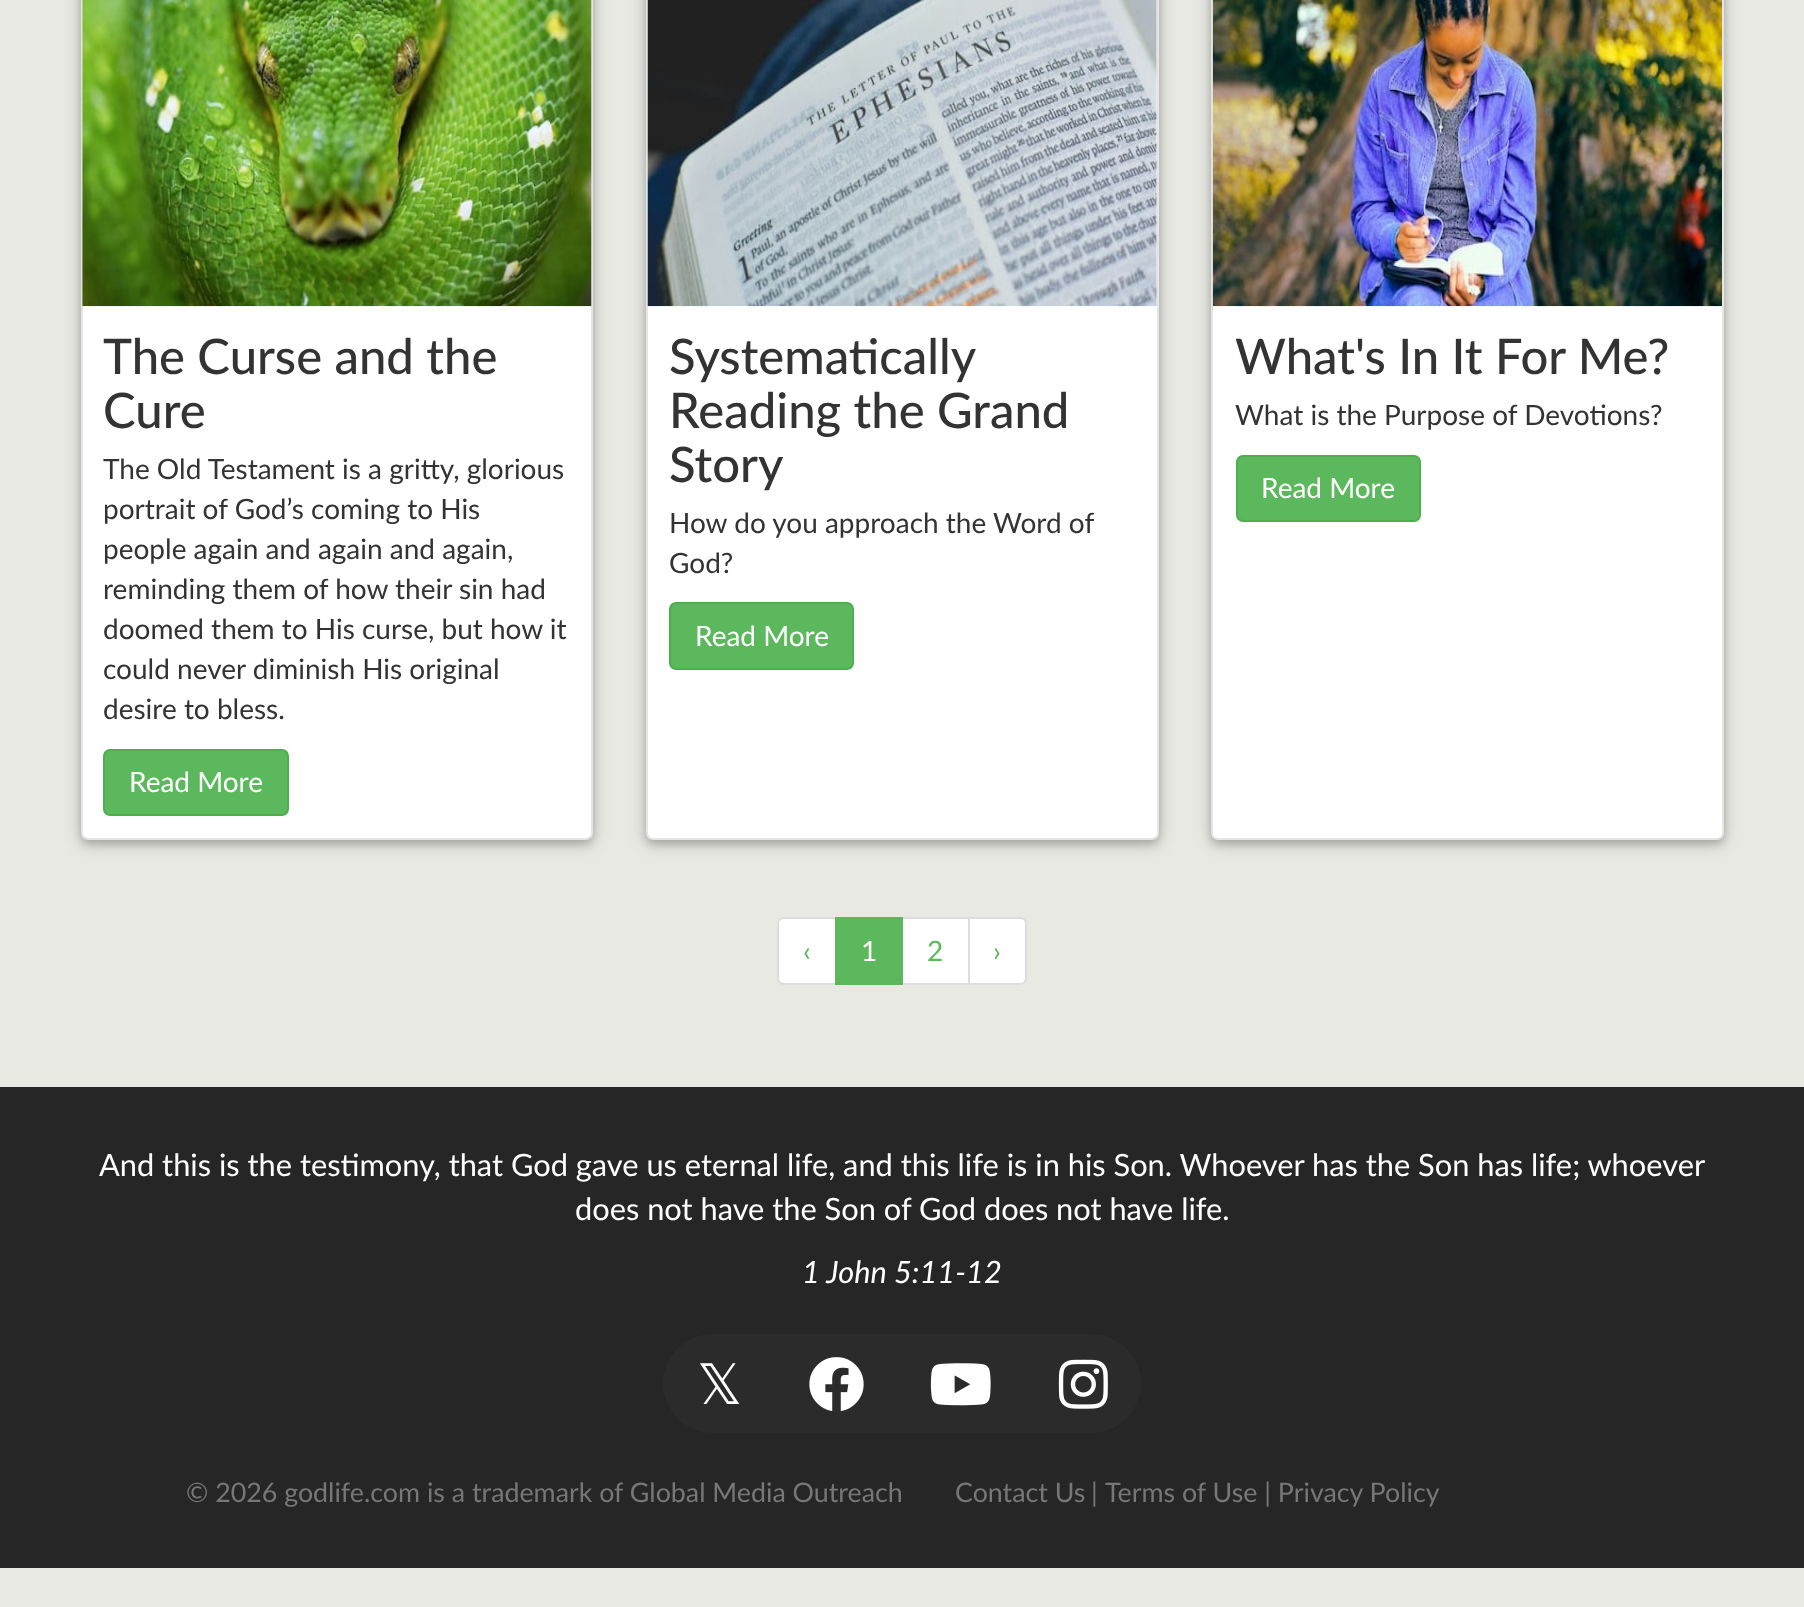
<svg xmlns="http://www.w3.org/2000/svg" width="1804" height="1607">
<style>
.a{font:500 49px Lato;fill:#333}
.b{font:28px Lato;fill:#333}
.c{font:28px Lato;fill:#fff}
.d{font:28px Lato;fill:#5cb85c}
.e{font:30.8px Lato;fill:#fff}
.f{font:italic 30.8px Lato;fill:#fff}
.g{font:56px DejaVu Sans;fill:#fff}
.h{font:26.8px Lato;fill:#777}
</style>
<rect width="100%" height="100%" fill="#e9e9e4"/>
<rect fill="#00000029" filter="blur(9px)" x="81" y="-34" width="512" height="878" rx="7"/>
<rect fill="#00000033" filter="blur(4.5px)" x="81" y="-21" width="512" height="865" rx="7"/>
<rect fill="#fff" stroke="#e5e5e5" stroke-width="2" x="82" y="-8" width="510" height="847" rx="6"/>
<image href="1.png" x="82" y="0" width="510" height="307"/>
<rect fill="#5cb85c" stroke="#4cae4c" stroke-width="2" x="104" y="750" width="184" height="65" rx="6"/>
<rect fill="#00000029" filter="blur(9px)" x="646" y="-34" width="513" height="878" rx="7"/>
<rect fill="#00000033" filter="blur(4.5px)" x="646" y="-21" width="513" height="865" rx="7"/>
<rect fill="#fff" stroke="#e5e5e5" stroke-width="2" x="647" y="-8" width="511" height="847" rx="6"/>
<image href="2.png" x="647" y="0" width="510" height="307"/>
<rect fill="#5cb85c" stroke="#4cae4c" stroke-width="2" x="670" y="603" width="183" height="66" rx="6"/>
<rect fill="#00000029" filter="blur(9px)" x="1211" y="-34" width="513" height="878" rx="7"/>
<rect fill="#00000033" filter="blur(4.5px)" x="1211" y="-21" width="513" height="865" rx="7"/>
<rect fill="#fff" stroke="#e5e5e5" stroke-width="2" x="1212" y="-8" width="511" height="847" rx="6"/>
<image href="3.png" x="1212" y="0" width="510" height="307"/>
<rect fill="#5cb85c" stroke="#4cae4c" stroke-width="2" x="1237" y="456" width="183" height="65" rx="6"/>
<path fill="#fff" stroke="#ddd" stroke-width="2" d="M784 918h52v66h-52c-3.5 0-6-2.5-6-6v-54c0-3.5 2.5-6 6-6z"/>
<path fill="#fff" stroke="#ddd" stroke-width="2" d="M902 918h67v66H902z"/>
<path fill="#5cb85c" d="M835 917h68v68H835z"/>
<path fill="#fff" stroke="#ddd" stroke-width="2" d="M969 918h51c3.5 0 6 2.5 6 6v54c0 3.5-2.5 6-6 6h-51z"/>
<path fill="#262626" d="M0 1087h1804v481H0z"/>
<path fill="#2b2b2b" d="M712.5 1334h62.5v99h-62.5c-27.5 0-49.5-22-49.5-49.5c0-27.5 22-49.5 49.5-49.5z"/>
<path fill="#2b2b2b" d="M775 1334h249v99H775z"/>
<image href="4.png" x="809" y="1357" width="55" height="54"/>
<path fill="#2b2b2b" d="M1024 1334h67.5c27.5 0 49.5 22 49.5 49.5c0 27.5-22 49.5-49.5 49.5h-67.5z"/>
<image href="5.png" x="1058" y="1359" width="50" height="50"/>
<image href="6.png" x="930" y="1363" width="61" height="43"/>
<text class="a" x="103" y="374">The Curse and the</text>
<text class="a" x="103" y="428">Cure</text>
<text class="b" x="103" y="479">The Old Testament is a gritty, glorious</text>
<text class="b" x="103" y="519">portrait of God’s coming to His</text>
<text class="b" x="103" y="559">people again and again and again,</text>
<text class="b" x="103" y="599">reminding them of how their sin had</text>
<text class="b" x="103" y="639">doomed them to His curse, but how it</text>
<text class="b" x="103" y="679">could never diminish His original</text>
<text class="b" x="103" y="719">desire to bless.</text>
<text class="c" x="129" y="792">Read More</text>
<text class="a" x="669" y="374">Systematically</text>
<text class="a" x="669" y="428">Reading the Grand</text>
<text class="a" x="669" y="482">Story</text>
<text class="b" x="669" y="533">How do you approach the Word of</text>
<text class="b" x="669" y="573">God?</text>
<text class="c" x="695" y="646">Read More</text>
<text class="a" x="1235" y="374">What's In It For Me?</text>
<text class="b" x="1235" y="425">What is the Purpose of Devotions?</text>
<text class="c" x="1261" y="498">Read More</text>
<text class="d" x="803" y="961">‹</text>
<text class="c" x="861" y="961">1</text>
<text class="d" x="927" y="961">2</text>
<text class="d" x="993" y="961">›</text>
<text class="e" x="99" y="1176">And this is the testimony, that God gave us eternal life, and this life is in his Son. Whoever has the Son has life; whoever</text>
<text class="e" x="575" y="1220">does not have the Son of God does not have life.</text>
<text class="f" x="802" y="1283">1 John 5:11-12</text>
<text class="g" x="697" y="1404">𝕏</text>
<text class="h" x="186" y="1502">© 2026 godlife.com is a trademark of Global Media Outreach</text>
<text class="h" x="955" y="1502">Contact Us</text>
<text class="h" x="1091" y="1502">|</text>
<text class="h" x="1105" y="1502">Terms of Use | Privacy Policy</text>
</svg>
